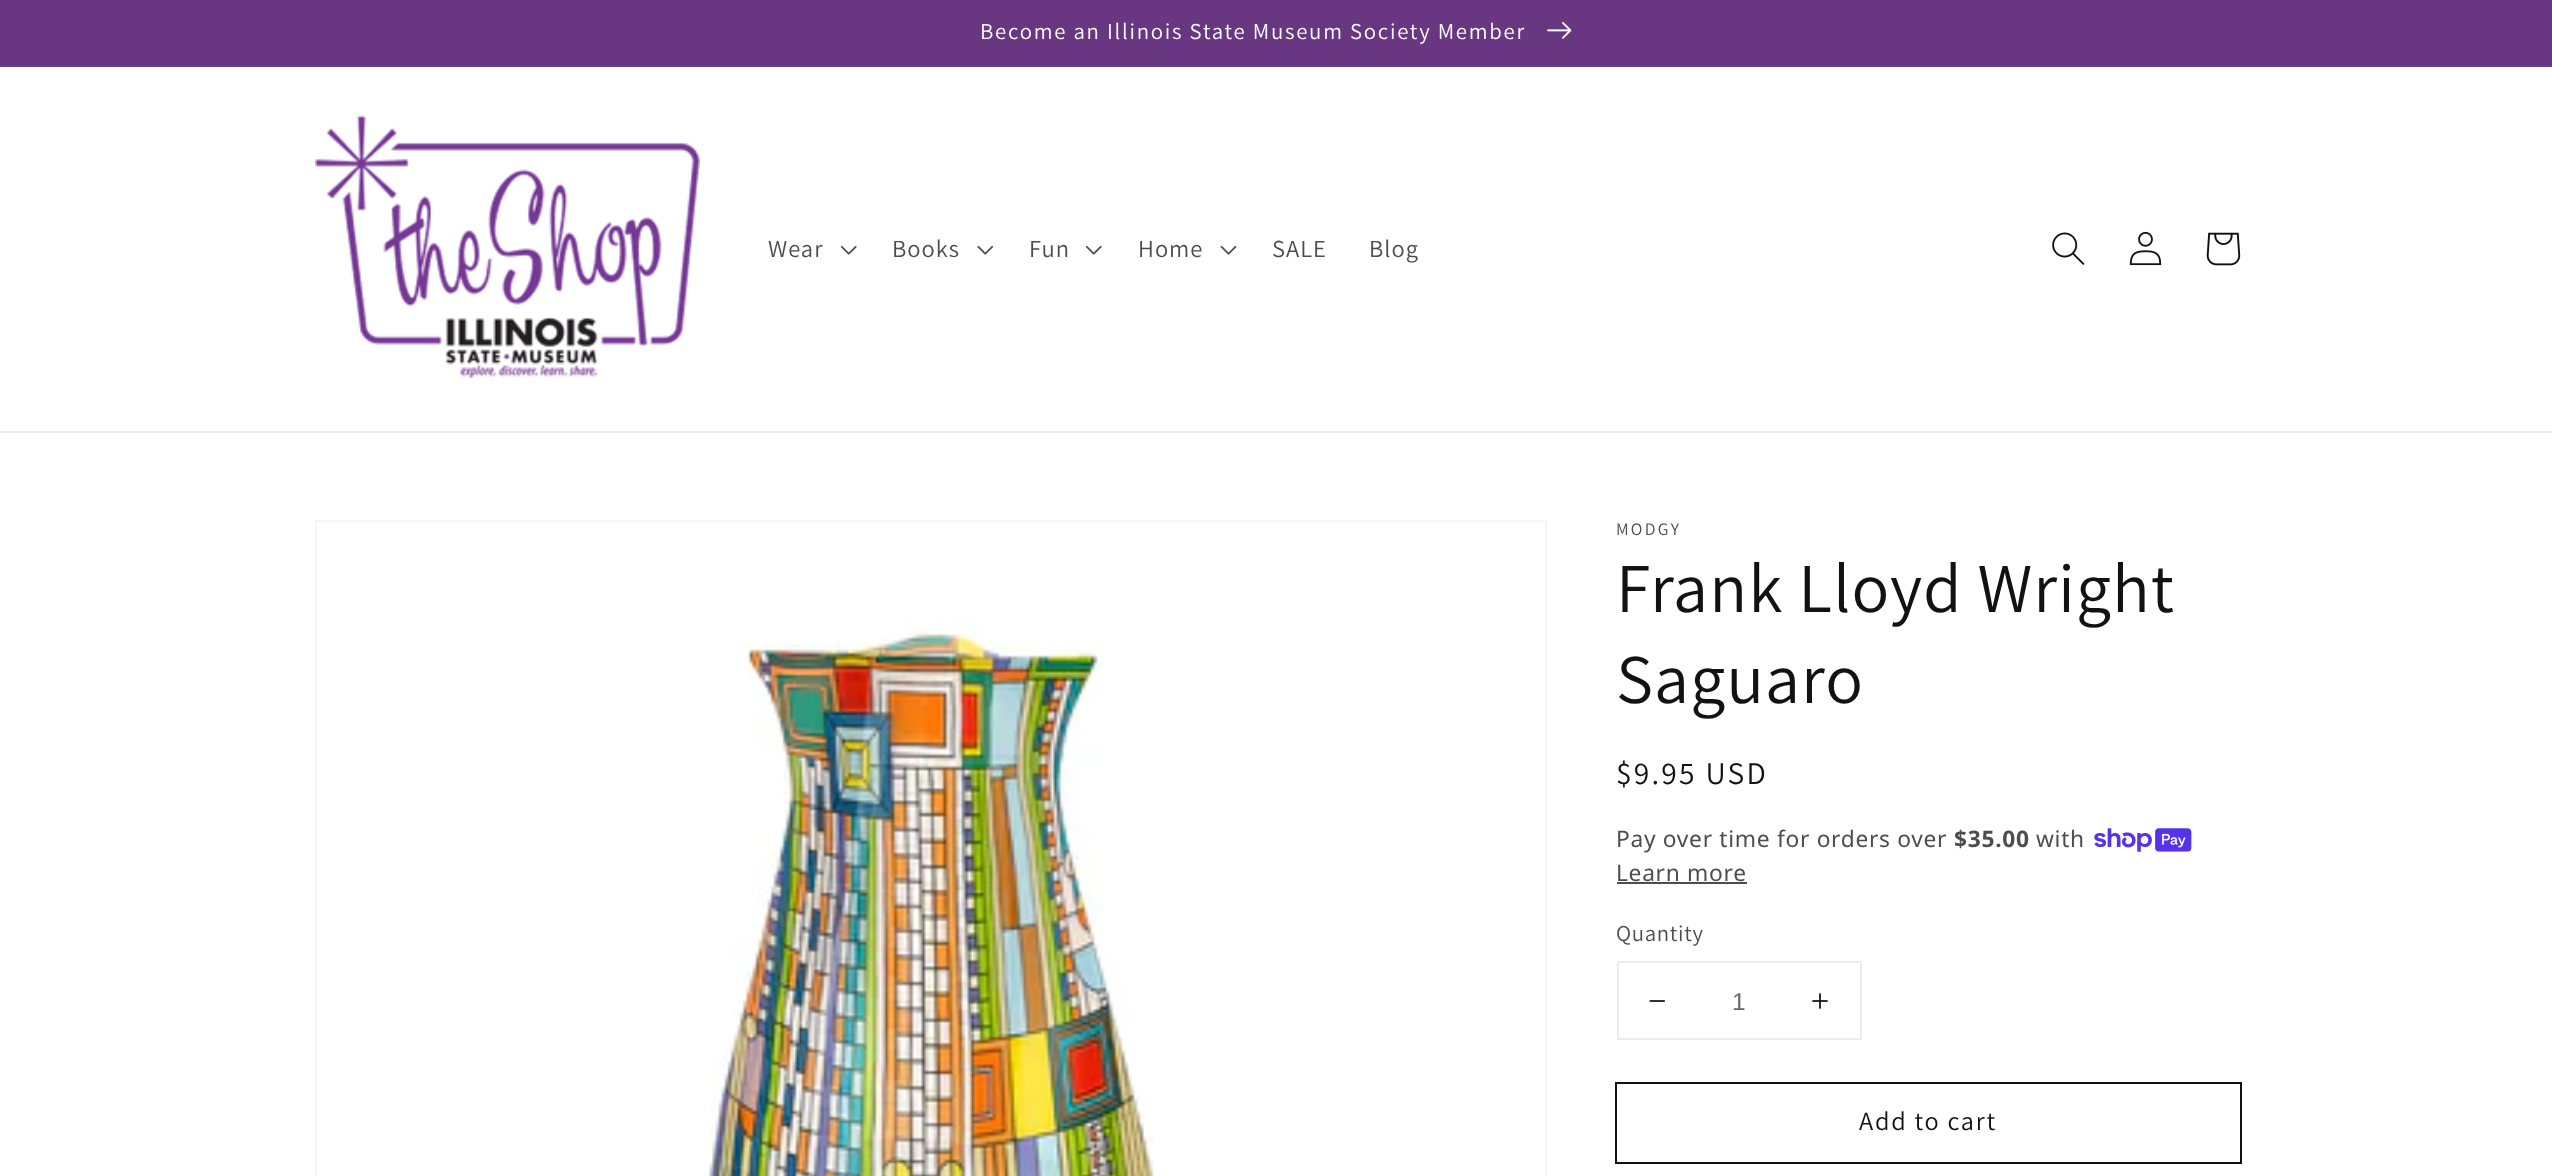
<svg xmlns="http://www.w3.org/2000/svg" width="2552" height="1176">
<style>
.a{font:22.75px Assistant;letter-spacing:1.75px;fill:#fff}
.b{font:24.5px Assistant;letter-spacing:1px;fill:#4d4d4d}
.c{font:17.5px Assistant;letter-spacing:2.25px;fill:#4d4d4d}
.d{font:70px Assistant;letter-spacing:1px;fill:#121212}
.e{font:31.5px Assistant;letter-spacing:2.25px;fill:#121212}
.f{font:22.75px Noto Sans;letter-spacing:0.7px;fill:#4d4d4d}
.g{font:bold 22.75px Noto Sans;letter-spacing:0.7px;fill:#4d4d4d}
.h{font:22.75px Assistant;letter-spacing:0.7px;fill:#4d4d4d}
.i{font:24.5px Liberation Sans;fill:#686868}
.j{font:26.25px Assistant;letter-spacing:1.75px;fill:#121212}
</style>
<rect width="100%" height="100%" fill="#fff"/>
<path fill="#6c3b85" d="M0 65h2552v2H0z"/>
<path fill="#693782" d="M0 0h2552v65H0z"/>
<image href="1.png" x="1547" y="22" width="25" height="17"/>
<path fill="#ececec" d="M0 431h2552v2H0z"/>
<image href="2.png" x="315" y="115" width="385" height="264"/>
<image href="3.png" x="840" y="245" width="17" height="10"/>
<image href="4.png" x="977" y="245" width="17" height="10"/>
<image href="3.png" x="1085" y="245" width="17" height="10"/>
<image href="5.png" x="1220" y="245" width="17" height="10"/>
<image href="6.png" x="2052" y="232" width="33" height="33"/>
<image href="7.png" x="2129" y="231" width="33" height="35"/>
<image href="8.png" x="2206" y="232" width="35" height="34"/>
<path fill="none" stroke="#f6f6f6" stroke-width="2" d="M316 521h1230v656H316z"/>
<image href="9.png" x="709" y="620" width="447" height="556"/>
<image href="10.png" x="2094" y="828" width="98" height="24"/>
<path fill="#4d4d4d" d="M1617 882h130v2H1617z"/>
<path fill="none" stroke="#ececec" stroke-width="2" d="M1618 962h243v77H1618z"/>
<image href="11.png" x="1649" y="1000" width="16" height="2"/>
<image href="12.png" x="1812" y="993" width="16" height="16"/>
<path fill="none" stroke="#121212" stroke-width="2" d="M1616 1083h625v80H1616z"/>
<text class="a" x="980" y="39">Become an Illinois State Museum Society Member</text>
<text class="b" x="768" y="257">Wear</text>
<text class="b" x="892" y="257">Books</text>
<text class="b" x="1029" y="257">Fun</text>
<text class="b" x="1138" y="257">Home</text>
<text class="b" x="1272" y="257">SALE</text>
<text class="b" x="1369" y="257">Blog</text>
<text class="c" x="1616" y="535">MODGY</text>
<text class="d" x="1616" y="612">Frank Lloyd Wright</text>
<text class="d" x="1616" y="703">Saguaro</text>
<text class="e" x="1616" y="784">$9.95 USD</text>
<text class="f" x="1616" y="847">Pay over time for orders over</text>
<text class="g" x="1954" y="847">$35.00</text>
<text class="f" x="2036" y="847">with</text>
<text class="f" x="1616" y="881">Learn more</text>
<text class="h" x="1616" y="941">Quantity</text>
<text class="i" x="1732" y="1010">1</text>
<text class="j" x="1859" y="1130">Add to cart</text>
</svg>
